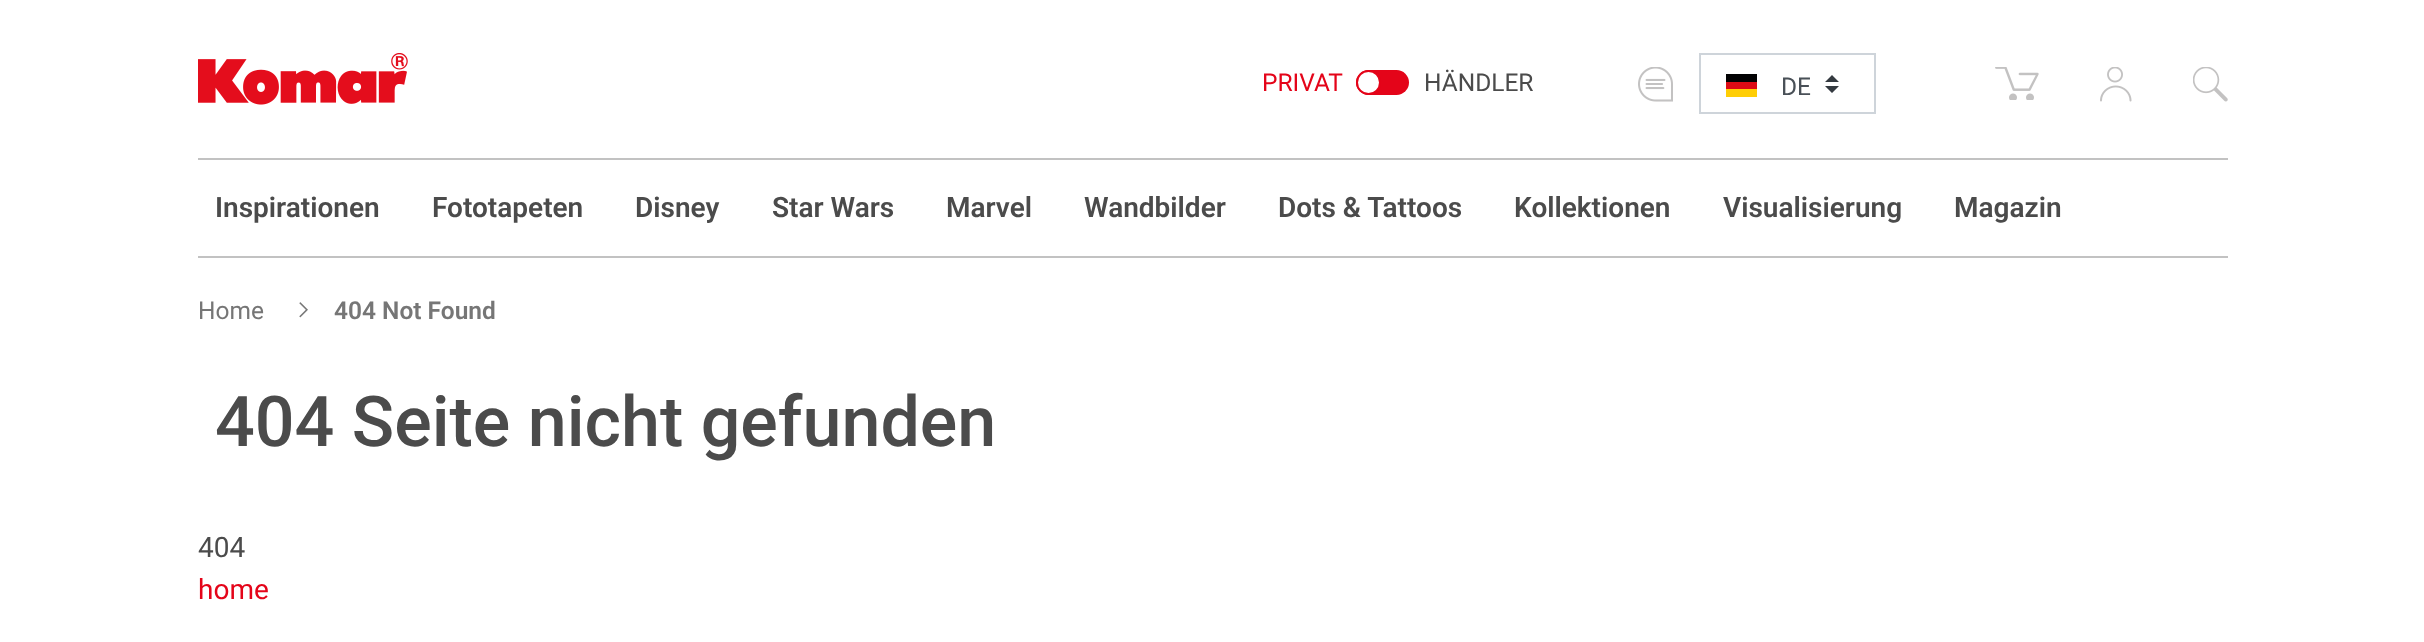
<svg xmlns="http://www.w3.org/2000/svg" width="2424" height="642">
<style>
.a{font:24.5px Roboto;fill:#e40419}
.b{font:24.5px Roboto;fill:#4b4b4b}
.c{font:24.5px Roboto;fill:#495057}
.d{font:600 28px Roboto;fill:#4b4b4b}
.e{font:24.5px Roboto;fill:#767676}
.f{font:600 24.5px Roboto;fill:#767676}
.g{font:500 70px Roboto;fill:#4b4b4b}
.h{font:28px Roboto;fill:#4b4b4b}
.i{font:28px Roboto;fill:#e40419}
</style>
<rect width="100%" height="100%" fill="#fff"/>
<image href="1.png" x="198" y="53" width="210" height="52"/>
<rect fill="#e40419" x="1356" y="70" width="53" height="25" rx="12.5"/>
<circle fill="#fff" stroke="#e40419" stroke-width="2" cx="1368.5" cy="82.5" r="11.5"/>
<image href="2.png" x="1638" y="67" width="35" height="35"/>
<path fill="#343a40" d="M1832 75l-7 7h14zm0 18l-7-7h14z"/>
<path fill="none" stroke="#ced4da" stroke-width="2" d="M1700 54h175v59H1700z"/>
<path fill="#ffce05" d="M1726 89h31v8H1726z"/>
<path fill="#020203" d="M1726 74h31v8H1726z"/>
<path fill="#dd0b15" d="M1726 82h31v7H1726z"/>
<image href="3.png" x="1995" y="67" width="44" height="33"/>
<image href="4.png" x="2100" y="67" width="32" height="35"/>
<image href="5.png" x="2193" y="67" width="35" height="35"/>
<path fill="#c2c2c2" d="M198 158h2030v2H198z"/>
<path fill="#c2c2c2" d="M198 256h2030v2H198z"/>
<image href="6.png" x="299" y="302" width="9" height="16"/>
<text class="a" x="1262" y="91">PRIVAT</text>
<text class="b" x="1424" y="91">HÄNDLER</text>
<text class="c" x="1781" y="95">DE</text>
<text class="d" x="215" y="217">Inspirationen</text>
<text class="d" x="432" y="217">Fototapeten</text>
<text class="d" x="635" y="217">Disney</text>
<text class="d" x="772" y="217">Star Wars</text>
<text class="d" x="946" y="217">Marvel</text>
<text class="d" x="1084" y="217">Wandbilder</text>
<text class="d" x="1278" y="217">Dots &amp; Tattoos</text>
<text class="d" x="1514" y="217">Kollektionen</text>
<text class="d" x="1723" y="217">Visualisierung</text>
<text class="d" x="1954" y="217">Magazin</text>
<text class="e" x="198" y="319">Home</text>
<text class="f" x="334" y="319">404 Not Found</text>
<text class="g" x="215" y="446">404 Seite nicht gefunden</text>
<text class="h" x="198" y="557">404</text>
<text class="i" x="198" y="599">home</text>
</svg>
